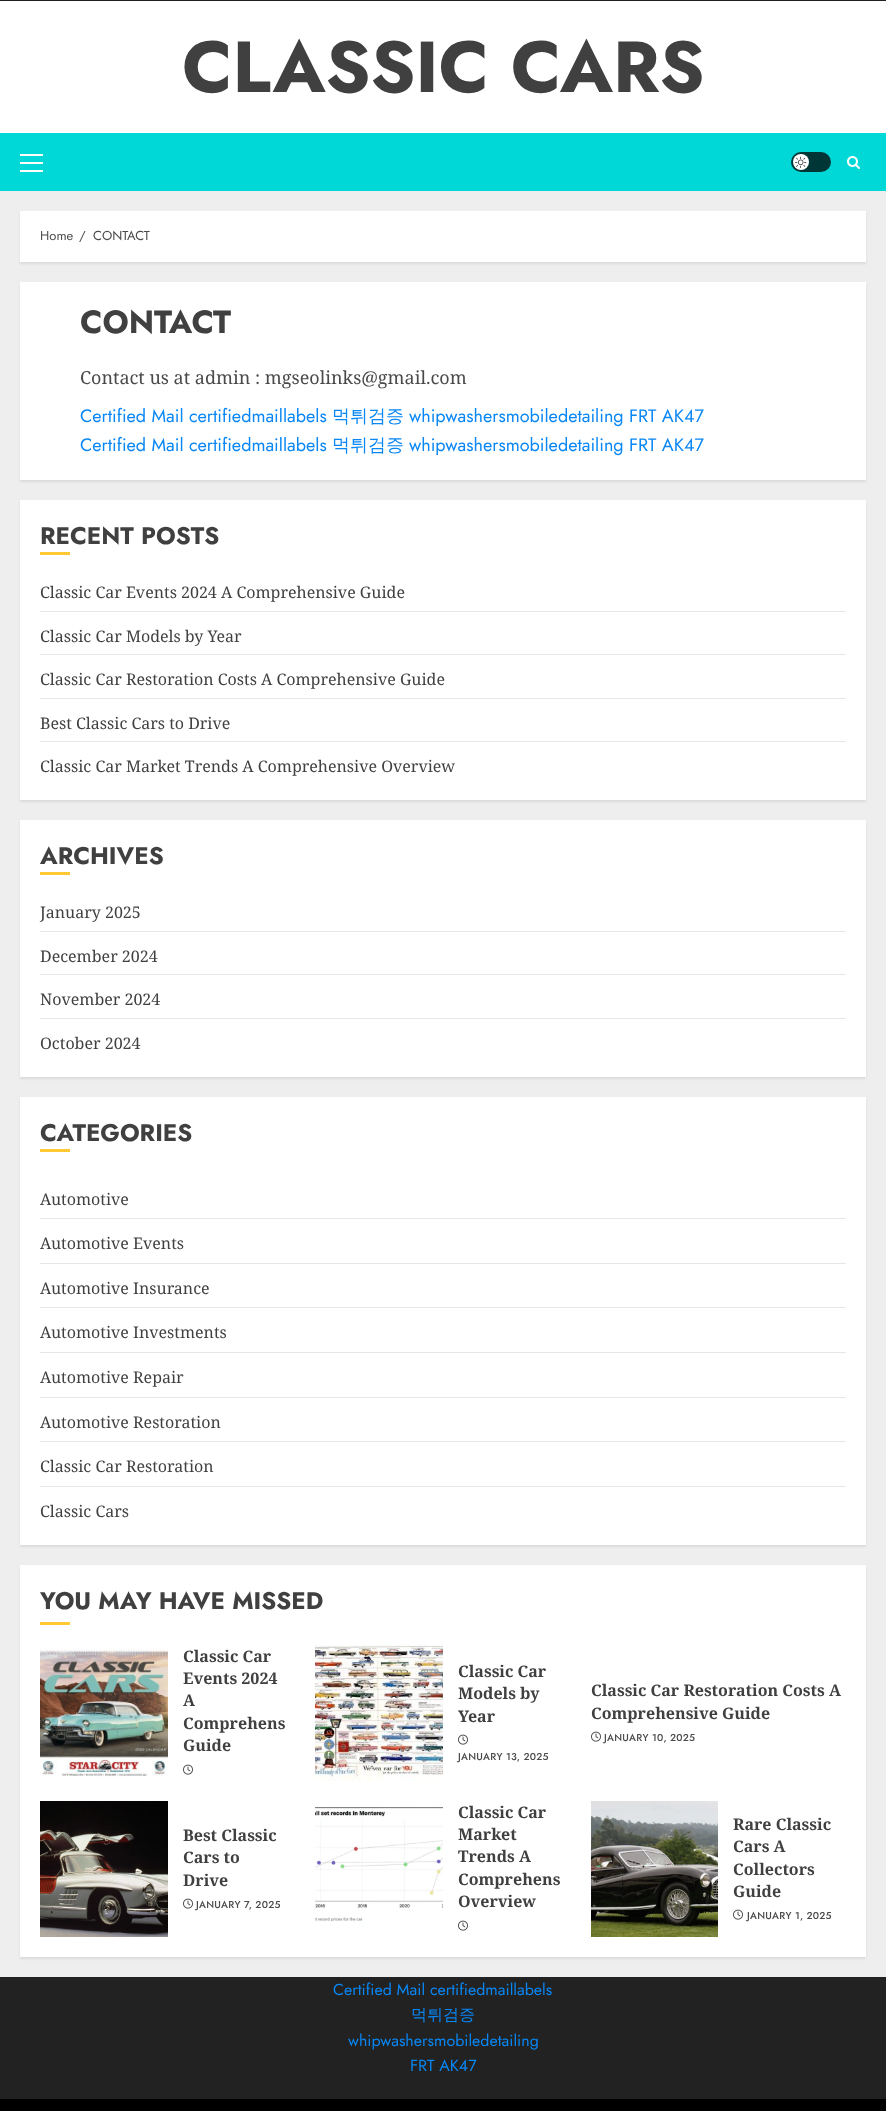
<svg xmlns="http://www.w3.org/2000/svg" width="886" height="2111">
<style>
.a{font:bold 72px Jost;fill:#404040}
.b{font:13px Jost;fill:#4a4a4a}
.c{font:bold 32px Jost;fill:#404040}
.d{font:18px Noto Serif;fill:#4a4a4a}
.e{font:18px Jost;fill:#0987f5}
.f{font:500 18px WenQuanYi Zen Hei;fill:#0987f5}
.g{font:bold 24px Jost;fill:#404040}
.h{font:16px Noto Serif;fill:#404040}
.i{font:bold 16px Noto Serif;fill:#404040}
.j{font:500 10px Jost;letter-spacing:0.25px;fill:#4a4a4a}
.k{font:16px Jost;fill:#0987f5}
.l{font:500 16px WenQuanYi Zen Hei;fill:#0987f5}
</style>
<rect width="100%" height="100%" fill="#eee"/>
<path fill="#202020" d="M0 0h886v1H0z"/>
<path fill="#fff" d="M0 1h886v132H0z"/>
<path fill="#00d8d8" d="M0 133h886v58H0z"/>
<path fill="#fff" d="M20 162h23v2H20z"/>
<path fill="#fff" d="M20 154h23v2H20z"/>
<path fill="#fff" d="M20 170h23v2H20z"/>
<rect fill="#003636" x="791" y="152" width="40" height="20" rx="10"/>
<circle fill="#fff" cx="801" cy="162" r="8"/>
<image href="1.png" x="795" y="156" width="12" height="12"/>
<image href="2.png" x="847" y="156" width="13" height="13"/>
<path fill="#00000014" filter="blur(1px)" d="M20 213h846v51H20z"/>
<path fill="#fff" d="M20 211h846v51H20z"/>
<path fill="#00000014" filter="blur(1px)" d="M20 284h846v198H20z"/>
<path fill="#fff" d="M20 282h846v198H20z"/>
<path fill="#00000014" filter="blur(1px)" d="M20 502h846v300H20z"/>
<path fill="#fff" d="M20 500h846v300H20z"/>
<path fill="#ffc934" d="M40 552h30v3H40z"/>
<path fill="#e6e6e6" d="M40 611h806v1H40z"/>
<path fill="#e6e6e6" d="M40 654h806v1H40z"/>
<path fill="#e6e6e6" d="M40 698h806v1H40z"/>
<path fill="#e6e6e6" d="M40 741h806v1H40z"/>
<path fill="#00000014" filter="blur(1px)" d="M20 822h846v257H20z"/>
<path fill="#fff" d="M20 820h846v257H20z"/>
<path fill="#ffc934" d="M40 872h30v3H40z"/>
<path fill="#e6e6e6" d="M40 931h806v1H40z"/>
<path fill="#e6e6e6" d="M40 974h806v1H40z"/>
<path fill="#e6e6e6" d="M40 1018h806v1H40z"/>
<path fill="#00000014" filter="blur(1px)" d="M20 1099h846v448H20z"/>
<path fill="#fff" d="M20 1097h846v448H20z"/>
<path fill="#ffc934" d="M40 1149h30v3H40z"/>
<path fill="#e6e6e6" d="M40 1218h806v1H40z"/>
<path fill="#e6e6e6" d="M40 1263h806v1H40z"/>
<path fill="#e6e6e6" d="M40 1307h806v1H40z"/>
<path fill="#e6e6e6" d="M40 1352h806v1H40z"/>
<path fill="#e6e6e6" d="M40 1397h806v1H40z"/>
<path fill="#e6e6e6" d="M40 1441h806v1H40z"/>
<path fill="#e6e6e6" d="M40 1486h806v1H40z"/>
<path fill="#00000014" filter="blur(1px)" d="M20 1567h846v392H20z"/>
<path fill="#fff" d="M20 1565h846v392H20z"/>
<path fill="#ffc934" d="M40 1622h30v3H40z"/>
<image href="3.png" x="40" y="1645" width="128" height="136"/>
<image href="4.png" x="183" y="1764" width="10" height="11"/>
<image href="5.png" x="315" y="1645" width="128" height="136"/>
<image href="4.png" x="458" y="1734" width="10" height="11"/>
<image href="4.png" x="591" y="1731" width="10" height="11"/>
<image href="6.png" x="40" y="1801" width="128" height="136"/>
<image href="4.png" x="183" y="1898" width="10" height="11"/>
<image href="7.png" x="315" y="1801" width="128" height="136"/>
<image href="4.png" x="458" y="1920" width="10" height="11"/>
<image href="8.png" x="591" y="1801" width="127" height="136"/>
<image href="4.png" x="733" y="1909" width="10" height="11"/>
<path fill="#222" d="M0 1977h886v122H0z"/>
<path fill="#000" d="M0 2099h886v12H0z"/>
<text class="a" x="182" y="92">CLASSIC CARS</text>
<text class="b" x="40" y="240">Home</text>
<text class="b" x="79" y="240">/</text>
<text class="b" x="93" y="240">CONTACT</text>
<text class="c" x="80" y="333">CONTACT</text>
<text class="d" x="80" y="384">Contact us at admin : mgseolinks@gmail.com</text>
<text class="e" x="80" y="422">Certified Mail certifiedmaillabels</text>
<text class="f" x="332" y="422">먹튀검증</text>
<text class="e" x="409" y="422">whipwashersmobiledetailing FRT AK47</text>
<text class="e" x="80" y="451">Certified Mail certifiedmaillabels</text>
<text class="f" x="332" y="451">먹튀검증</text>
<text class="e" x="409" y="451">whipwashersmobiledetailing FRT AK47</text>
<text class="g" x="40" y="544">RECENT POSTS</text>
<text class="h" x="40" y="598">Classic Car Events 2024 A Comprehensive Guide</text>
<text class="h" x="40" y="642">Classic Car Models by Year</text>
<text class="h" x="40" y="685">Classic Car Restoration Costs A Comprehensive Guide</text>
<text class="h" x="40" y="729">Best Classic Cars to Drive</text>
<text class="h" x="40" y="772">Classic Car Market Trends A Comprehensive Overview</text>
<text class="g" x="40" y="864">ARCHIVES</text>
<text class="h" x="40" y="918">January 2025</text>
<text class="h" x="40" y="962">December 2024</text>
<text class="h" x="40" y="1005">November 2024</text>
<text class="h" x="40" y="1049">October 2024</text>
<text class="g" x="40" y="1141">CATEGORIES</text>
<text class="h" x="40" y="1205">Automotive</text>
<text class="h" x="40" y="1249">Automotive Events</text>
<text class="h" x="40" y="1294">Automotive Insurance</text>
<text class="h" x="40" y="1338">Automotive Investments</text>
<text class="h" x="40" y="1383">Automotive Repair</text>
<text class="h" x="40" y="1428">Automotive Restoration</text>
<text class="h" x="40" y="1472">Classic Car Restoration</text>
<text class="h" x="40" y="1517">Classic Cars</text>
<text class="g" x="40" y="1609">YOU MAY HAVE MISSED</text>
<text class="i" x="183" y="1662">Classic Car</text>
<text class="i" x="183" y="1684">Events 2024</text>
<text class="i" x="183" y="1706">A</text>
<text class="i" x="183" y="1729">Comprehens</text>
<text class="i" x="183" y="1751">Guide</text>
<text class="i" x="458" y="1677">Classic Car</text>
<text class="i" x="458" y="1699">Models by</text>
<text class="i" x="458" y="1722">Year</text>
<text class="j" x="458" y="1760">JANUARY 13, 2025</text>
<text class="i" x="591" y="1696">Classic Car Restoration Costs A</text>
<text class="i" x="591" y="1719">Comprehensive Guide</text>
<text class="j" x="604" y="1741">JANUARY 10, 2025</text>
<text class="i" x="183" y="1841">Best Classic</text>
<text class="i" x="183" y="1863">Cars to</text>
<text class="i" x="183" y="1886">Drive</text>
<text class="j" x="196" y="1908">JANUARY 7, 2025</text>
<text class="i" x="458" y="1818">Classic Car</text>
<text class="i" x="458" y="1840">Market</text>
<text class="i" x="458" y="1862">Trends A</text>
<text class="i" x="458" y="1885">Comprehens</text>
<text class="i" x="458" y="1907">Overview</text>
<text class="i" x="733" y="1830">Rare Classic</text>
<text class="i" x="733" y="1852">Cars A</text>
<text class="i" x="733" y="1875">Collectors</text>
<text class="i" x="733" y="1897">Guide</text>
<text class="j" x="747" y="1919">JANUARY 1, 2025</text>
<text class="k" x="333" y="1995">Certified Mail certifiedmaillabels</text>
<text class="l" x="411" y="2020">먹튀검증</text>
<text class="k" x="348" y="2046">whipwashersmobiledetailing</text>
<text class="k" x="410" y="2071">FRT AK47</text>
</svg>
